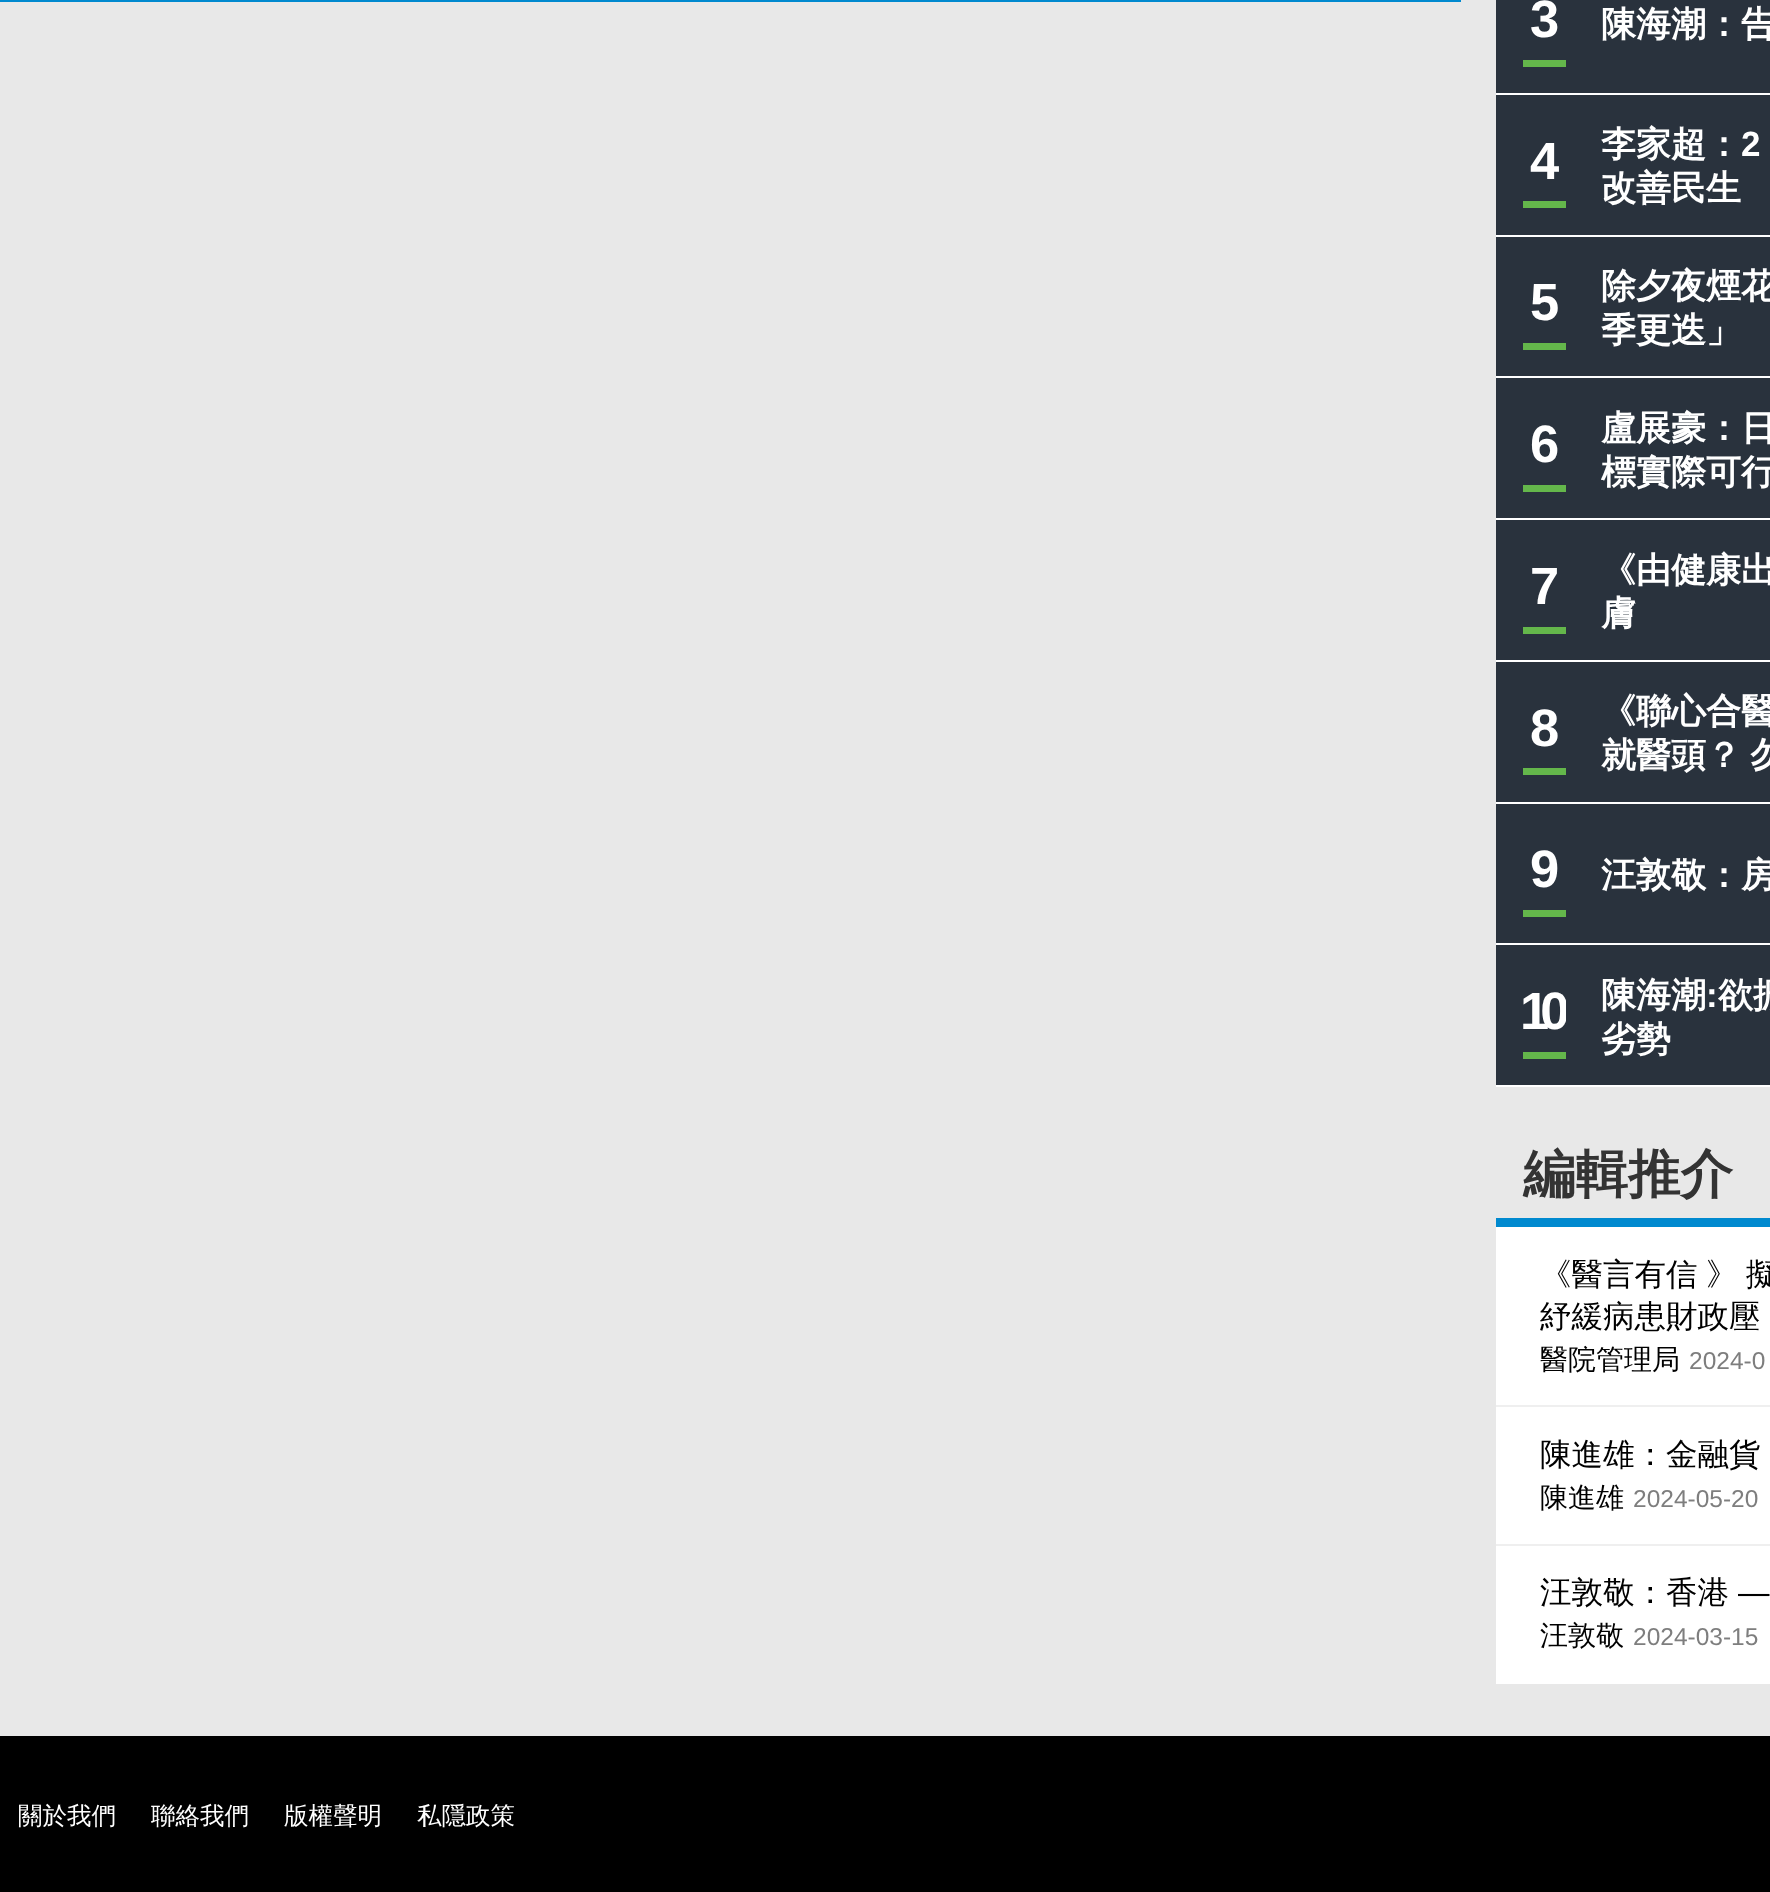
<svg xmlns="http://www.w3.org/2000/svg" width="1770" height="1892">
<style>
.a{font:bold 52.5px Liberation Sans;letter-spacing:-9px;fill:#fff}
.b{font:bold 35px WenQuanYi Zen Hei;fill:#fff}
.c{font:bold 35px Liberation Sans;fill:#fff}
.d{font:bold 52.5px WenQuanYi Zen Hei;fill:#333}
.e{font:500 31.5px WenQuanYi Zen Hei;fill:#000}
.f{font:500 28px WenQuanYi Zen Hei;fill:#000}
.g{font:24.5px Liberation Sans;fill:#7e7e7e}
.h{font:31.5px Liberation Sans;fill:#000}
.i{font:500 24.5px WenQuanYi Zen Hei;fill:#fff}
</style>
<defs>
<clipPath id="clip1"><path d="M1523 971h43v81H1523z"/></clipPath>
</defs>
<rect width="100%" height="100%" fill="#e8e8e8"/>
<path fill="#0089cf" d="M0 0h1461v2H0z"/>
<path fill="#29323d" d="M1496 0h274v1085H1496z"/>
<path fill="#fff" d="M1496 93h274v2H1496z"/>
<path fill="#64b74b" d="M1523 60h43v7H1523z"/>
<path fill="#fff" d="M1496 235h274v2H1496z"/>
<path fill="#64b74b" d="M1523 201h43v7H1523z"/>
<path fill="#fff" d="M1496 376h274v2H1496z"/>
<path fill="#64b74b" d="M1523 343h43v7H1523z"/>
<path fill="#fff" d="M1496 518h274v2H1496z"/>
<path fill="#64b74b" d="M1523 485h43v7H1523z"/>
<path fill="#fff" d="M1496 660h274v2H1496z"/>
<path fill="#64b74b" d="M1523 627h43v7H1523z"/>
<path fill="#fff" d="M1496 802h274v2H1496z"/>
<path fill="#64b74b" d="M1523 768h43v7H1523z"/>
<path fill="#fff" d="M1496 943h274v2H1496z"/>
<path fill="#64b74b" d="M1523 910h43v7H1523z"/>
<path fill="#fff" d="M1496 1085h274v2H1496z"/>
<path fill="#64b74b" d="M1523 1052h43v7H1523z"/>
<path fill="#fff" d="M1496 1227h274v457H1496z"/>
<path fill="#0089cf" d="M1496 1218h274v9H1496z"/>
<path fill="#efefef" d="M1496 1405h274v2H1496z"/>
<path fill="#efefef" d="M1496 1544h274v2H1496z"/>
<path fill="#000" d="M0 1736h1770v156H0z"/>
<text class="a" x="1530" y="37">3</text>
<text class="b" x="1601" y="36">陳海潮：告</text>
<text class="a" x="1530" y="179">4</text>
<text class="b" x="1601" y="156">李家超：</text>
<text class="c" x="1741" y="156">2</text>
<text class="b" x="1601" y="200">改善民生</text>
<text class="a" x="1530" y="320">5</text>
<text class="b" x="1601" y="298">除夕夜煙花</text>
<text class="b" x="1601" y="342">季更迭」</text>
<text class="a" x="1530" y="462">6</text>
<text class="b" x="1601" y="440" word-spacing="-1">盧展豪：日</text>
<text class="b" x="1601" y="484">標實際可行</text>
<text class="a" x="1530" y="604">7</text>
<text class="b" x="1601" y="582">《由健康出</text>
<text class="b" x="1601" y="625">膚</text>
<text class="a" x="1530" y="746">8</text>
<text class="b" x="1601" y="723">《聯心合醫</text>
<text class="b" x="1601" y="767" word-spacing="-1">就醫頭？ 勿</text>
<text class="a" x="1530" y="887">9</text>
<text class="b" x="1601" y="887">汪敦敬：房</text>
<g clip-path="url(#clip1)">
<text class="a" x="1520" y="1029">10</text>
</g>
<text class="b" x="1601" y="1007">陳海潮</text>
<text class="c" x="1706" y="1007">:</text>
<text class="b" x="1718" y="1007" word-spacing="-1">欲振</text>
<text class="b" x="1601" y="1051">劣勢</text>
<text class="d" x="1523" y="1192">編輯推介</text>
<text class="e" x="1540" y="1285" word-spacing="-1">《醫言有信 》 擬</text>
<text class="e" x="1540" y="1327">紓緩病患財政壓</text>
<text class="f" x="1540" y="1369">醫院管理局</text>
<text class="g" x="1689" y="1369">2024-0</text>
<text class="e" x="1540" y="1465" word-spacing="-1">陳進雄：金融貨</text>
<text class="f" x="1540" y="1507">陳進雄</text>
<text class="g" x="1633" y="1507">2024-05-20</text>
<text class="e" x="1540" y="1603">汪敦敬：香港</text>
<text class="h" x="1738" y="1603">—</text>
<text class="f" x="1540" y="1645">汪敦敬</text>
<text class="g" x="1633" y="1645">2024-03-15</text>
<text class="i" x="18" y="1824">關於我們</text>
<text class="i" x="151" y="1824">聯絡我們</text>
<text class="i" x="284" y="1824">版權聲明</text>
<text class="i" x="417" y="1824">私隱政策</text>
</svg>
